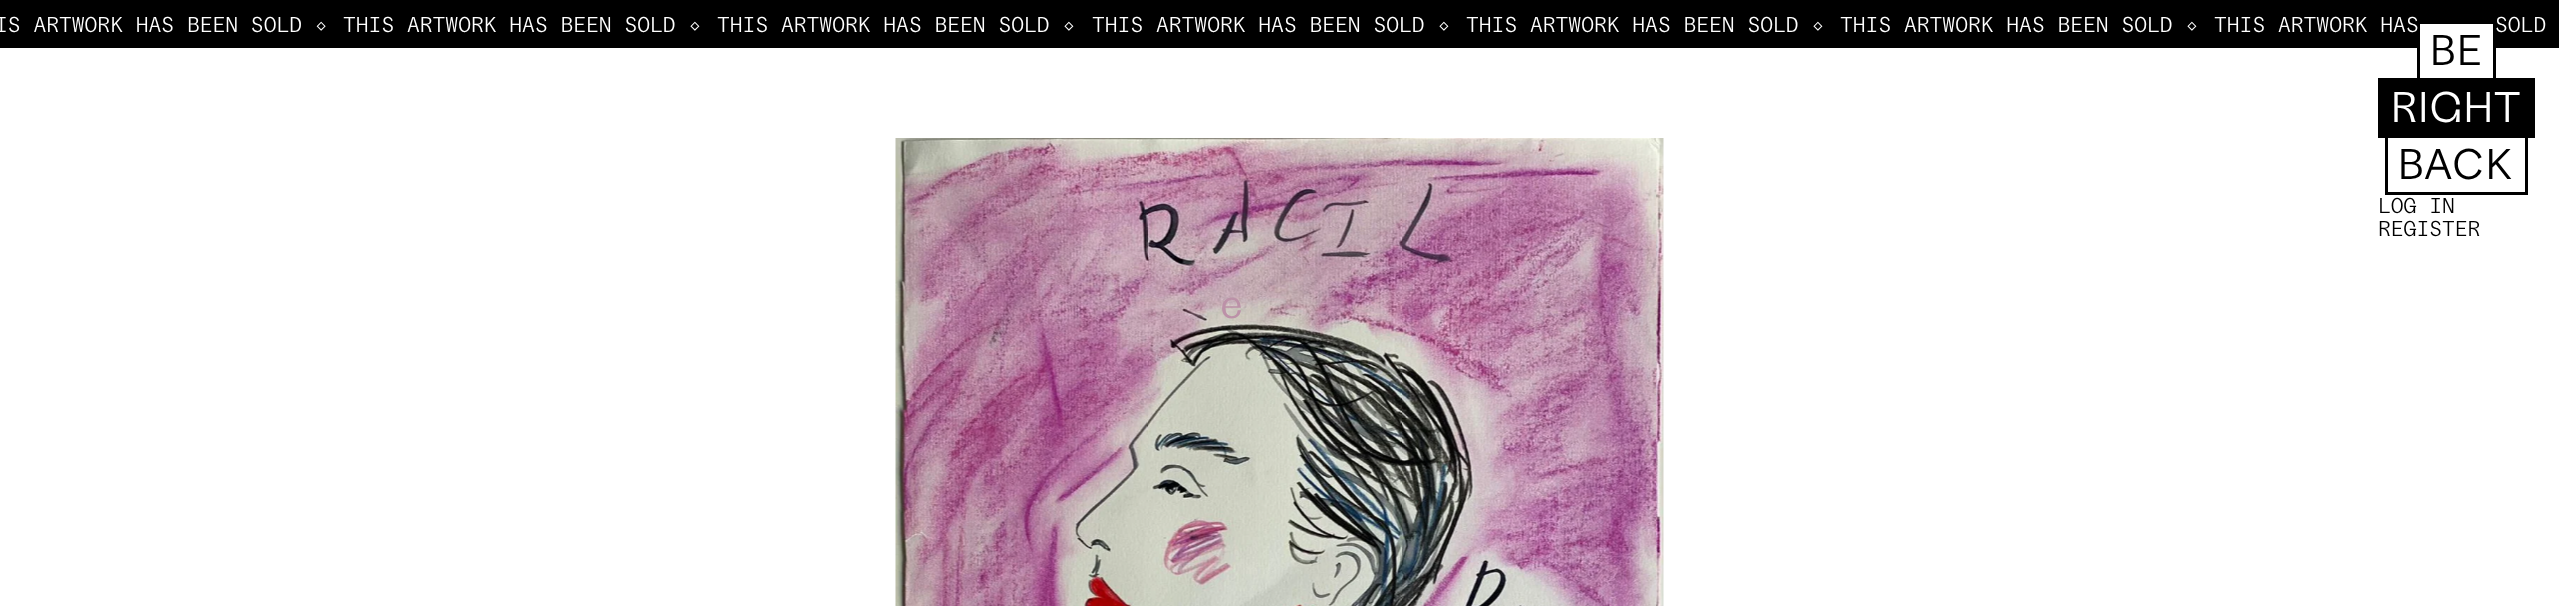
<svg xmlns="http://www.w3.org/2000/svg" width="2559" height="606">
<style>
.a{font:300 20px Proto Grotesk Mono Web;fill:#fff}
.b{font:300 40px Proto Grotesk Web;letter-spacing:1px;fill:#000}
.c{font:300 40px Proto Grotesk Web;letter-spacing:1px;fill:#fff}
.d{font:300 20px Proto Grotesk Mono Web;fill:#000}
.e{font:300 40px Proto Grotesk Web;letter-spacing:1px;fill:#bc91a8}
</style>
<rect width="100%" height="100%" fill="#fff"/>
<path fill="#000" d="M0 0h2559v48H0z"/>
<image href="1.png" x="895" y="138" width="769" height="468"/>
<path fill="#fff" d="M2420 24h73v24H2420z"/>
<path fill="none" stroke="#000" stroke-width="3" d="M2418.5 22.5h76v57H2418.5z"/>
<path fill="#000" d="M2378 78h157v60H2378z"/>
<path fill="none" stroke="#000" stroke-width="3" d="M2386.5 136.5h140v57H2386.5z"/>
<text class="a" x="-5" y="32">IS ARTWORK HAS BEEN SOLD ◇</text>
<text class="a" x="343" y="32">THIS ARTWORK HAS BEEN SOLD ◇</text>
<text class="a" x="717" y="32">THIS ARTWORK HAS BEEN SOLD ◇</text>
<text class="a" x="1092" y="32">THIS ARTWORK HAS BEEN SOLD ◇</text>
<text class="a" x="1466" y="32">THIS ARTWORK HAS BEEN SOLD ◇</text>
<text class="a" x="1840" y="32">THIS ARTWORK HAS BEEN SOLD ◇</text>
<text class="a" x="2214" y="32">THIS ARTWORK HAS</text>
<text class="a" x="2495" y="32">SOLD</text>
<text class="b" x="2430" y="65">BE</text>
<text class="c" x="2391" y="122">RIGHT</text>
<text class="b" x="2398" y="179">BACK</text>
<text class="d" x="2378" y="213">LOG IN</text>
<text class="d" x="2378" y="236">REGISTER</text>
<text class="e" x="1220" y="318">e</text>
</svg>
